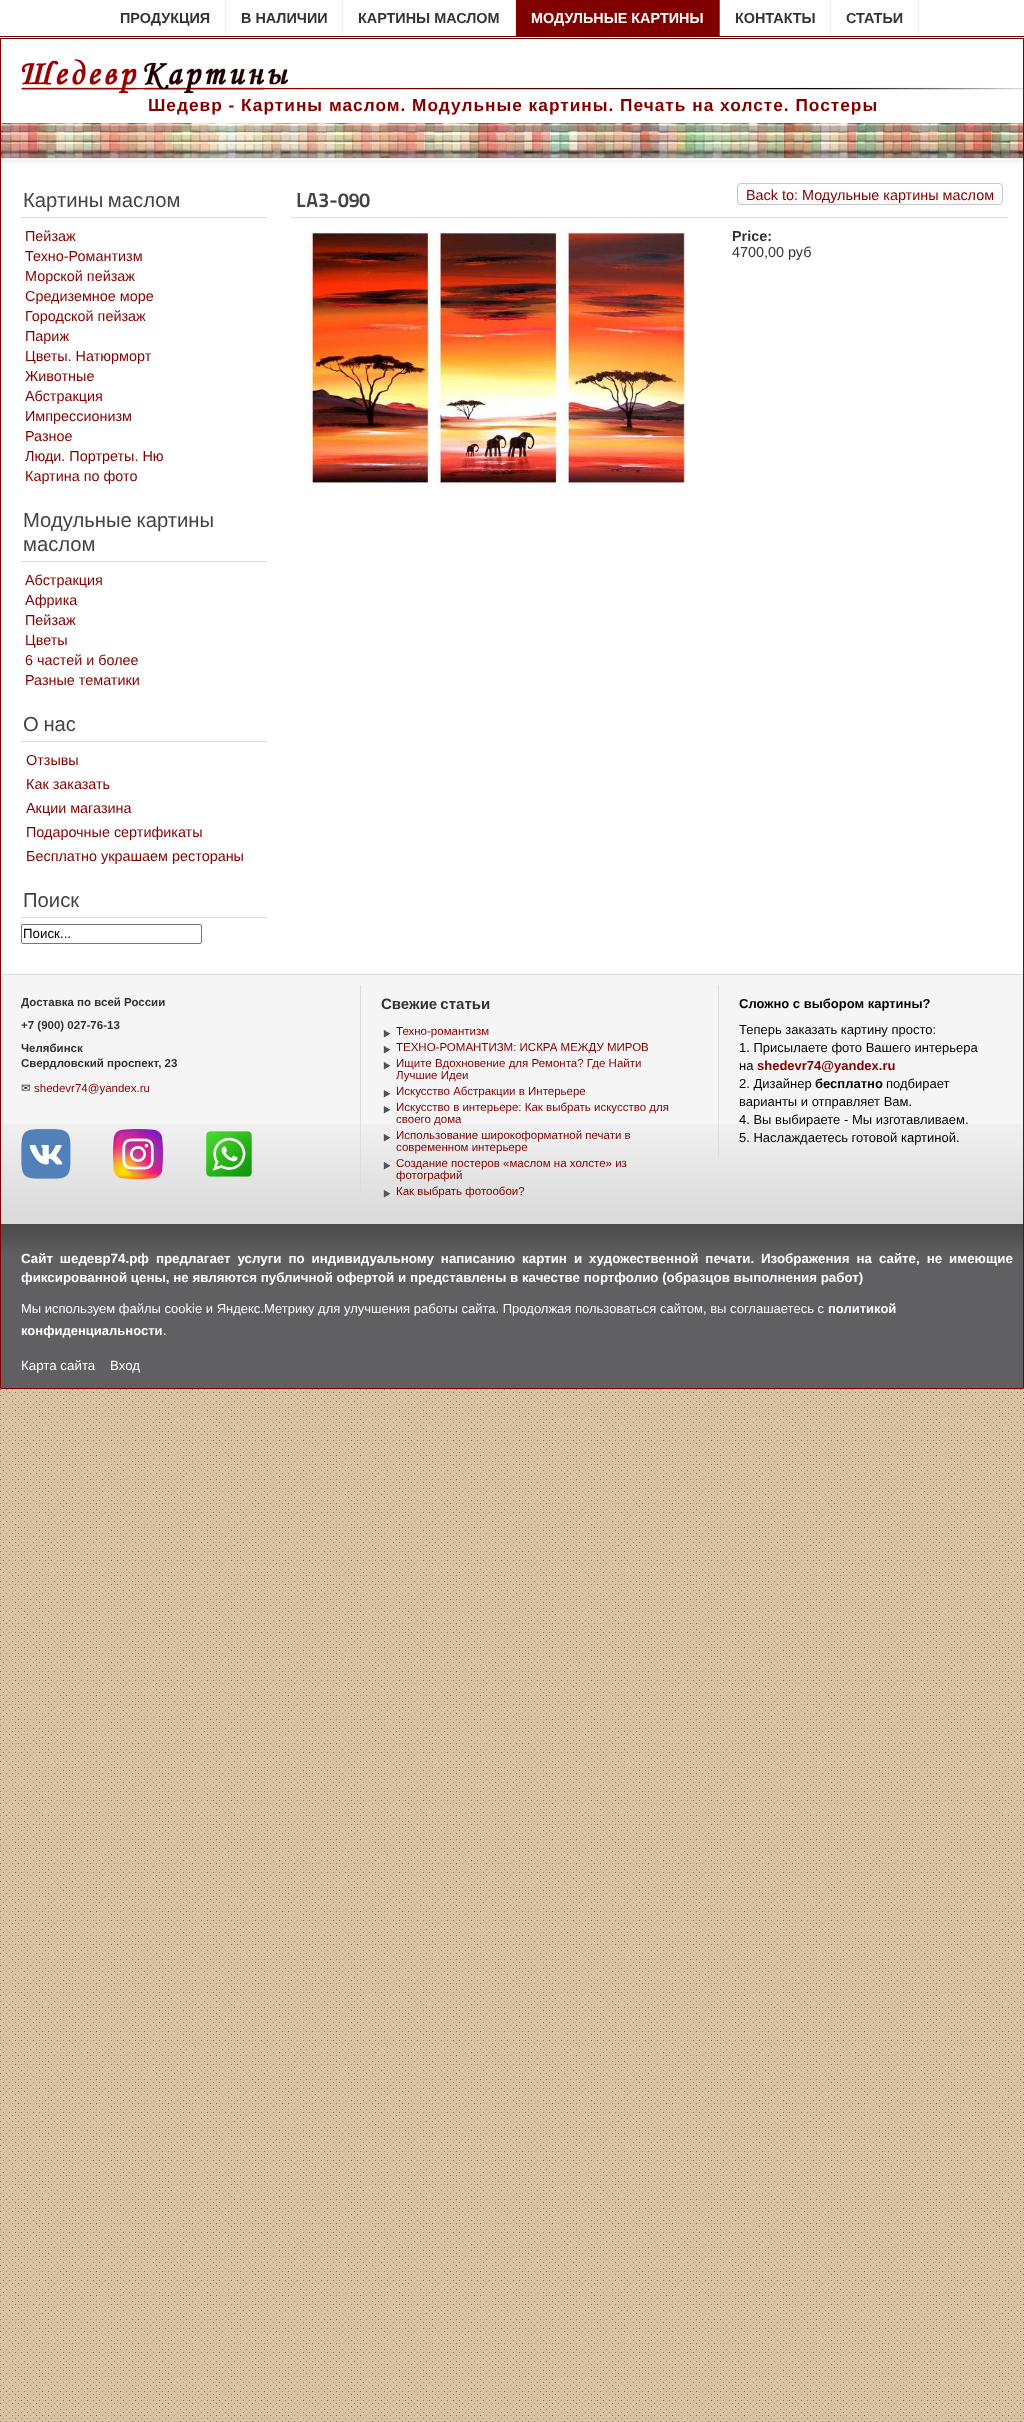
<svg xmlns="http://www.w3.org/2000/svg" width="1024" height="2422">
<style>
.a{font:bold 14.4px Liberation Sans;fill:#333}
.b{font:bold 14.4px Liberation Sans;fill:#fff}
.c{font:bold 17.3px Liberation Sans;letter-spacing:1px;fill:#800000}
.d{font:20.25px Liberation Sans;fill:#444}
.e{font:14.4px Liberation Sans;fill:#800000}
.f{font:13.33px Liberation Sans;fill:#000}
.g{font:800 20.25px 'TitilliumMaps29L';fill:#444}
.h{font:14.4px Liberation Sans;fill:#333}
.i{font:bold 11.5px Liberation Sans;fill:#333}
.j{font:11.5px DejaVu Sans;fill:#333}
.k{font:11.5px Liberation Sans;fill:#800000}
.l{font:bold 15px Liberation Sans;fill:#333}
.m{font:bold 13px Liberation Sans;fill:#000}
.n{font:13px Liberation Sans;fill:#000}
.o{font:bold 13px Liberation Sans;fill:#800000}
.p{font:bold 13.33px Liberation Sans;fill:#fff}
.q{font:13px Liberation Sans;fill:#fff}
.r{font:bold 13px Liberation Sans;fill:#fff}
.s{font:13.33px Liberation Sans;fill:#fff}
</style>
<rect width="100%" height="100%" fill="#fff"/>
<image href="1.png" x="0" y="1389" width="1024" height="1033"/>
<path fill="none" stroke="#800000" d="M0.5 0.5h1023v1388H0.5z"/>
<path fill="#fff" d="M0 0h1024v38H0z"/>
<path fill="#620002" d="M0 36h1024v1H0z"/>
<path fill="#620002" d="M0 38h1024v1H0z"/>
<path fill="#eee" d="M225 0h1v36H225z"/>
<path fill="#eee" d="M342 0h1v36H342z"/>
<path fill="#eee" d="M515 0h1v36H515z"/>
<path fill="#800000" d="M516 0h203v36H516z"/>
<path fill="#237d85" d="M719 0h1v36H719z"/>
<path fill="#eee" d="M830 0h1v36H830z"/>
<path fill="#eee" d="M918 0h1v36H918z"/>
<image href="2.png" x="21" y="59" width="1002" height="34"/>
<image href="3.png" x="1" y="123" width="1022" height="35"/>
<image href="4.png" x="1" y="158" width="1022" height="6"/>
<path fill="#ddd" d="M21 217h246v1H21z"/>
<path fill="#ddd" d="M21 561h246v1H21z"/>
<path fill="#ddd" d="M21 741h246v1H21z"/>
<path fill="#ddd" d="M21 917h246v1H21z"/>
<rect fill="none" stroke="#767676" x="21.5" y="924.5" width="180" height="19" rx="1.5"/>
<path fill="#ddd" d="M291 217h717v1H291z"/>
<image href="5.png" x="737" y="184" width="266" height="21"/>
<rect fill="none" stroke="#cac9c9" x="737.5" y="183.5" width="265" height="21" rx="3.5"/>
<image href="6.png" x="307" y="228" width="381" height="257"/>
<path fill="#f5f5f5" d="M1 975h1022v149H1z"/>
<image href="7.png" x="1" y="1124" width="1022" height="100"/>
<path fill="#ddd" d="M1 974h1022v1H1z"/>
<path fill="#ddd" d="M360 985h1v211H360z"/>
<image href="8.png" x="21" y="1129" width="50" height="50"/>
<image href="9.png" x="113" y="1129" width="50" height="50"/>
<image href="10.png" x="206" y="1131" width="46" height="46"/>
<image href="11.png" x="383" y="1030" width="8" height="8"/>
<image href="11.png" x="383" y="1046" width="8" height="8"/>
<image href="11.png" x="383" y="1062" width="8" height="8"/>
<image href="11.png" x="383" y="1090" width="8" height="8"/>
<image href="11.png" x="383" y="1106" width="8" height="8"/>
<image href="12.png" x="383" y="1134" width="8" height="8"/>
<image href="13.png" x="383" y="1162" width="8" height="8"/>
<image href="14.png" x="383" y="1190" width="8" height="8"/>
<path fill="#ddd" d="M718 985h1v172H718z"/>
<image href="15.png" x="1" y="1224" width="1022" height="164"/>
<text class="a" x="120" y="23">ПРОДУКЦИЯ</text>
<text class="a" x="241" y="23">В НАЛИЧИИ</text>
<text class="a" x="358" y="23">КАРТИНЫ МАСЛОМ</text>
<text class="b" x="531" y="23">МОДУЛЬНЫЕ КАРТИНЫ</text>
<text class="a" x="735" y="23">КОНТАКТЫ</text>
<text class="a" x="846" y="23">СТАТЬИ</text>
<text class="c" x="148" y="111">Шедевр - Картины маслом. Модульные картины. Печать на холсте. Постеры</text>
<text class="d" x="23" y="207" word-spacing="-1">Картины маслом</text>
<text class="e" x="25" y="241">Пейзаж</text>
<text class="e" x="25" y="261">Техно-Романтизм</text>
<text class="e" x="25" y="281">Морской пейзаж</text>
<text class="e" x="25" y="301">Средиземное море</text>
<text class="e" x="25" y="321">Городской пейзаж</text>
<text class="e" x="25" y="341">Париж</text>
<text class="e" x="25" y="361">Цветы. Натюрморт</text>
<text class="e" x="25" y="381">Животные</text>
<text class="e" x="25" y="401">Абстракция</text>
<text class="e" x="25" y="421">Импрессионизм</text>
<text class="e" x="25" y="441">Разное</text>
<text class="e" x="25" y="461">Люди. Портреты. Ню</text>
<text class="e" x="25" y="481">Картина по фото</text>
<text class="d" x="23" y="527" word-spacing="-1">Модульные картины</text>
<text class="d" x="23" y="551">маслом</text>
<text class="e" x="25" y="585">Абстракция</text>
<text class="e" x="25" y="605">Африка</text>
<text class="e" x="25" y="625">Пейзаж</text>
<text class="e" x="25" y="645">Цветы</text>
<text class="e" x="25" y="665">6 частей и более</text>
<text class="e" x="25" y="685">Разные тематики</text>
<text class="d" x="23" y="731" word-spacing="-1">О нас</text>
<text class="e" x="26" y="765">Отзывы</text>
<text class="e" x="26" y="789">Как заказать</text>
<text class="e" x="26" y="813">Акции магазина</text>
<text class="e" x="26" y="837">Подарочные сертификаты</text>
<text class="e" x="26" y="861">Бесплатно украшаем рестораны</text>
<text class="d" x="23" y="907">Поиск</text>
<text class="f" x="23" y="938">Поиск...</text>
<text class="g" x="296" y="207">LA3-090</text>
<text class="e" x="746" y="200">Back to: Модульные картины маслом</text>
<text class="a" x="732" y="241">Price:</text>
<text class="h" x="732" y="257">4700,00 руб</text>
<text class="i" x="21" y="1006">Доставка по всей России</text>
<text class="i" x="21" y="1029">+7 (900) 027-76-13</text>
<text class="i" x="21" y="1052">Челябинск</text>
<text class="i" x="21" y="1067">Свердловский проспект, 23</text>
<text class="j" x="21" y="1092">✉</text>
<text class="k" x="34" y="1092">shedevr74@yandex.ru</text>
<text class="l" x="381" y="1009" word-spacing="-1">Свежие статьи</text>
<text class="k" x="396" y="1035">Техно-романтизм</text>
<text class="k" x="396" y="1051">ТЕХНО-РОМАНТИЗМ: ИСКРА МЕЖДУ МИРОВ</text>
<text class="k" x="396" y="1067">Ищите Вдохновение для Ремонта? Где Найти</text>
<text class="k" x="396" y="1079">Лучшие Идеи</text>
<text class="k" x="396" y="1095">Искусство Абстракции в Интерьере</text>
<text class="k" x="396" y="1111">Искусство в интерьере: Как выбрать искусство для</text>
<text class="k" x="396" y="1123">своего дома</text>
<text class="k" x="396" y="1139">Использование широкоформатной печати в</text>
<text class="k" x="396" y="1151">современном интерьере</text>
<text class="k" x="396" y="1167">Создание постеров «маслом на холсте» из</text>
<text class="k" x="396" y="1179">фотографий</text>
<text class="k" x="396" y="1195">Как выбрать фотообои?</text>
<text class="m" x="739" y="1008">Сложно с выбором картины?</text>
<text class="n" x="739" y="1034">Теперь заказать картину просто:</text>
<text class="n" x="739" y="1052">1. Присылаете фото Вашего интерьера</text>
<text class="n" x="739" y="1070">на</text>
<text class="o" x="757" y="1070">shedevr74@yandex.ru</text>
<text class="n" x="739" y="1088">2. Дизайнер</text>
<text class="m" x="815" y="1088">бесплатно</text>
<text class="n" x="886" y="1088">подбирает</text>
<text class="n" x="739" y="1106">варианты и отправляет Вам.</text>
<text class="n" x="739" y="1124">4. Вы выбираете - Мы изготавливаем.</text>
<text class="n" x="739" y="1142">5. Наслаждаетесь готовой картиной.</text>
<text class="p" x="21" y="1263" word-spacing="3.25">Сайт шедевр74.рф предлагает услуги по индивидуальному написанию картин и художественной печати. Изображения на сайте, не имеющие</text>
<text class="p" x="21" y="1282">фиксированной цены, не являются публичной офертой и представлены в качестве портфолио (образцов выполнения работ)</text>
<text class="q" x="21" y="1313">Мы используем файлы cookie и Яндекс.Метрику для улучшения работы сайта. Продолжая пользоваться сайтом, вы соглашаетесь с</text>
<text class="r" x="828" y="1313">политикой</text>
<text class="r" x="21" y="1335">конфиденциальности</text>
<text class="q" x="163" y="1335">.</text>
<text class="s" x="21" y="1370">Карта сайта</text>
<text class="s" x="110" y="1370">Вход</text>
</svg>
